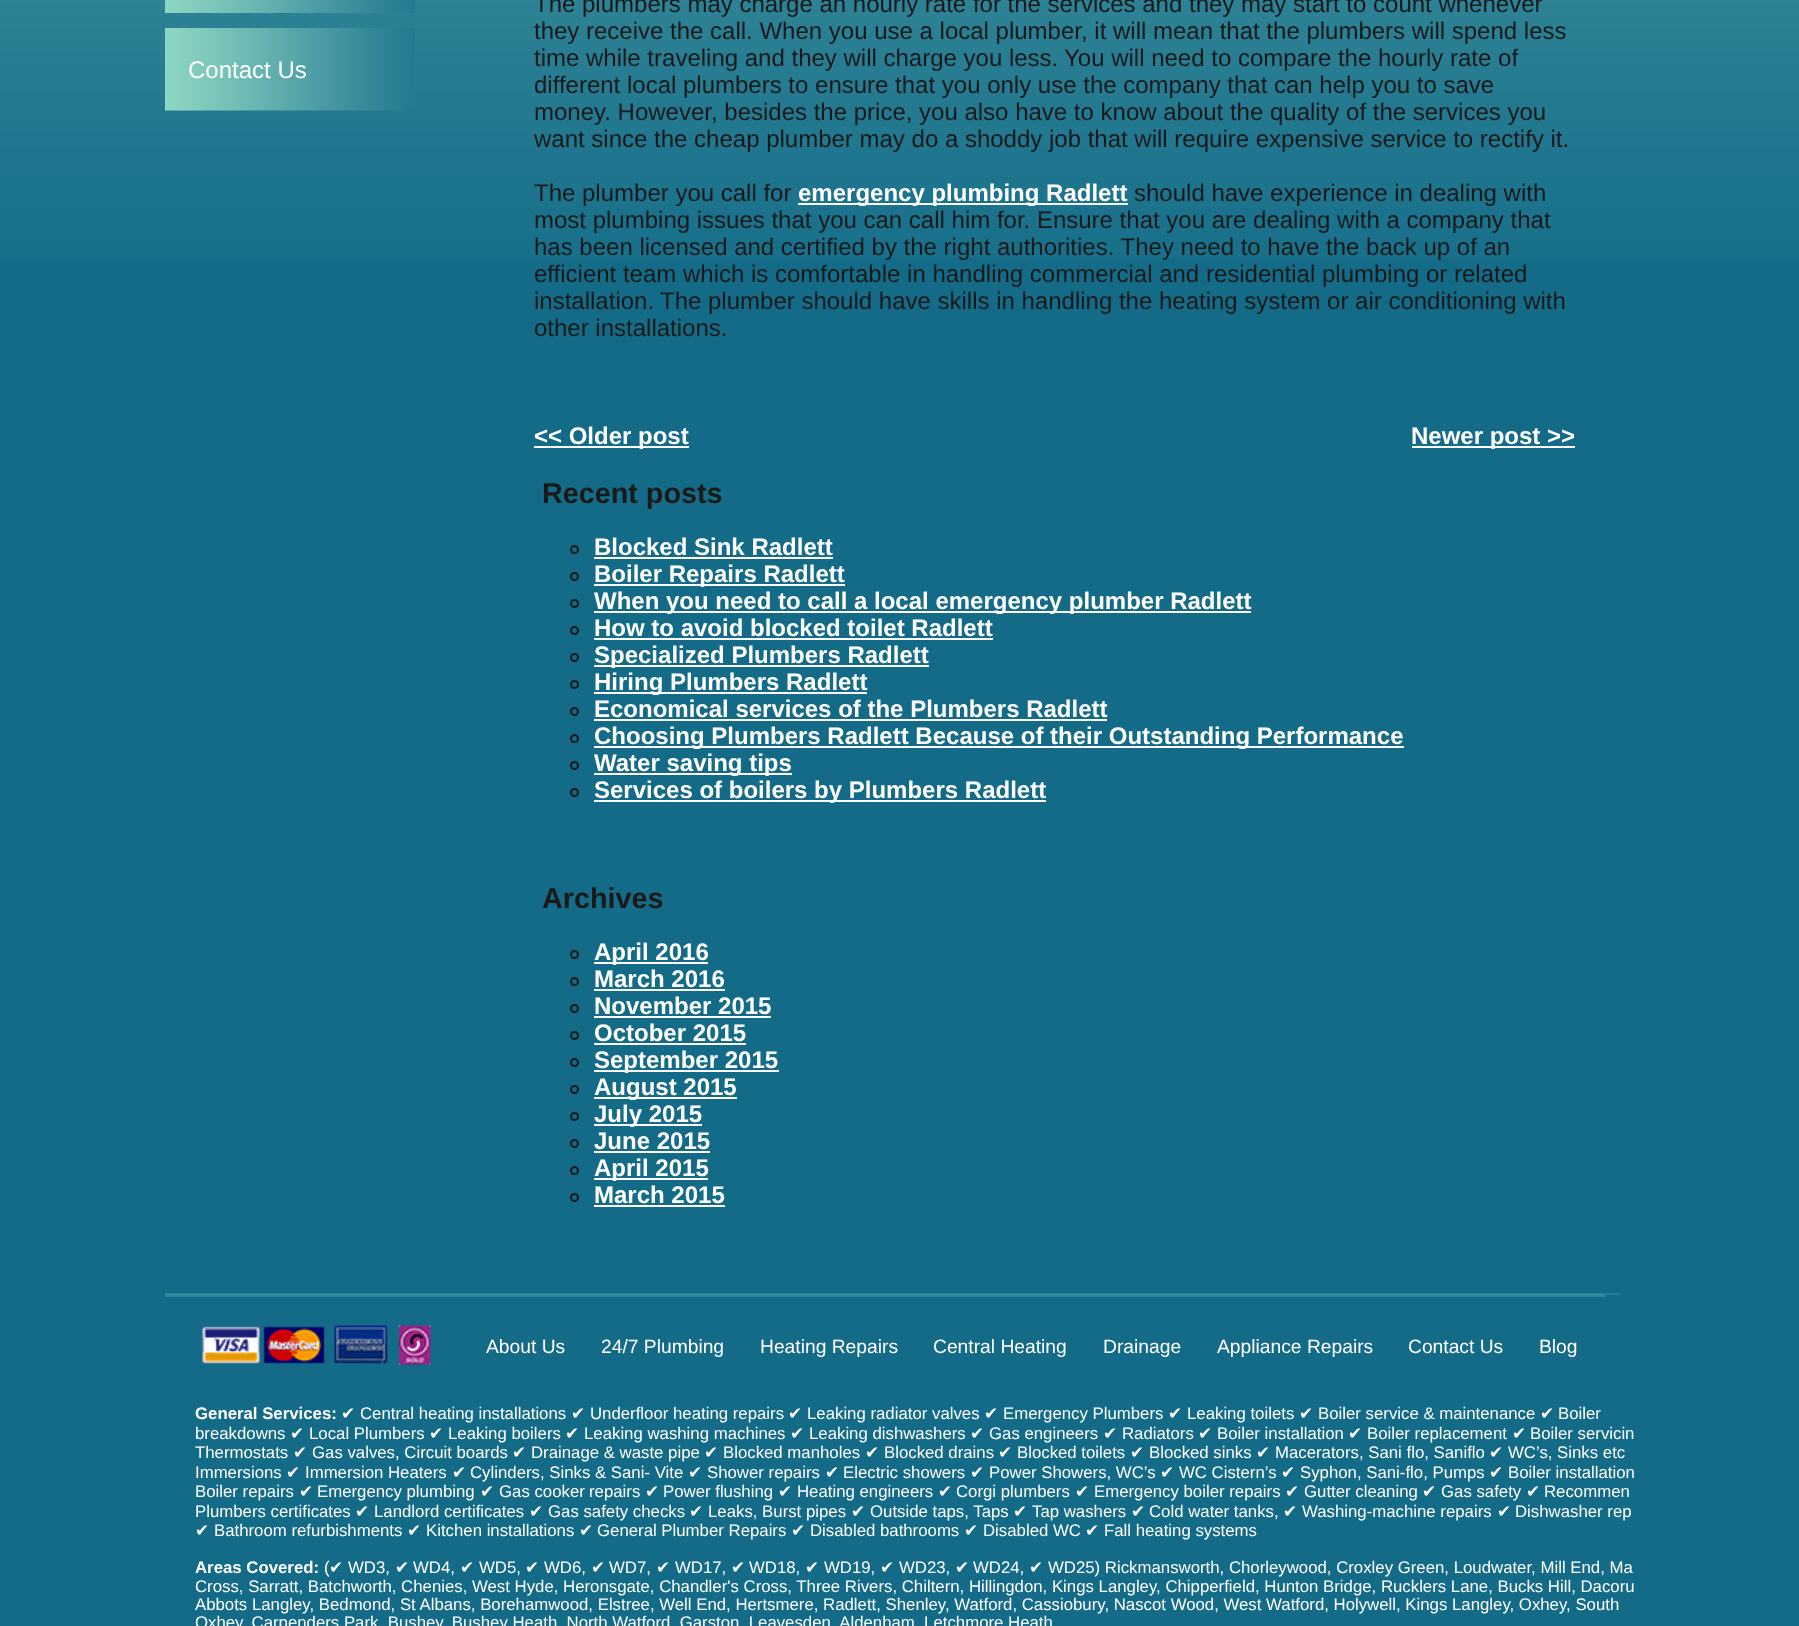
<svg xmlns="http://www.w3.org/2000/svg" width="1799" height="1626">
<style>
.a{font:24px Liberation Sans;fill:#fff}
.b{font:24px Liberation Sans;fill:#191919}
.c{font:bold 24px Liberation Sans;fill:#fff}
.d{font:bold 28.75px Liberation Sans;fill:#191919}
.e{font:19.25px Liberation Sans;fill:#fff}
.f{font:bold 16.8px Liberation Sans;fill:#fff}
.g{font:16.8px DejaVu Sans;fill:#fff}
.h{font:16.8px Liberation Sans;fill:#fff}
</style>
<rect width="100%" height="100%" fill="#146b88"/>
<path fill="#2d8697" d="M165 1295h1440v2H165z"/>
<image href="1.png" x="0" y="0" width="1799" height="258"/>
<path fill="#267b97" d="M165 1293h1455v2H165z"/>
<path fill="#3891a0" d="M165 1294h1440v1H165z"/>
<image href="2.png" x="165" y="0" width="251" height="13"/>
<image href="3.png" x="165" y="28" width="250" height="83"/>
<path fill="#fff" d="M798 203h330v2H798z"/>
<path fill="#fff" d="M534 446h155v2H534z"/>
<path fill="#fff" d="M1412 446h163v2H1412z"/>
<circle fill="none" stroke="#191919" stroke-width="2" cx="574.5" cy="549.5" r="3.5"/>
<path fill="#fff" d="M594 557h239v2H594z"/>
<circle fill="none" stroke="#191919" stroke-width="2" cx="574.5" cy="576.5" r="3.5"/>
<path fill="#fff" d="M594 584h251v2H594z"/>
<circle fill="none" stroke="#191919" stroke-width="2" cx="574.5" cy="603.5" r="3.5"/>
<path fill="#fff" d="M594 611h657v2H594z"/>
<circle fill="none" stroke="#191919" stroke-width="2" cx="574.5" cy="630.5" r="3.5"/>
<path fill="#fff" d="M594 638h399v2H594z"/>
<circle fill="none" stroke="#191919" stroke-width="2" cx="574.5" cy="657.5" r="3.5"/>
<path fill="#fff" d="M594 665h335v2H594z"/>
<circle fill="none" stroke="#191919" stroke-width="2" cx="574.5" cy="684.5" r="3.5"/>
<path fill="#fff" d="M594 692h273v2H594z"/>
<circle fill="none" stroke="#191919" stroke-width="2" cx="574.5" cy="711.5" r="3.5"/>
<path fill="#fff" d="M594 719h513v2H594z"/>
<circle fill="none" stroke="#191919" stroke-width="2" cx="574.5" cy="738.5" r="3.5"/>
<path fill="#fff" d="M594 746h810v2H594z"/>
<circle fill="none" stroke="#191919" stroke-width="2" cx="574.5" cy="765.5" r="3.5"/>
<path fill="#fff" d="M594 773h198v2H594z"/>
<circle fill="none" stroke="#191919" stroke-width="2" cx="574.5" cy="792.5" r="3.5"/>
<path fill="#fff" d="M594 800h452v2H594z"/>
<circle fill="none" stroke="#191919" stroke-width="2" cx="574.5" cy="954.5" r="3.5"/>
<path fill="#fff" d="M594 962h114v2H594z"/>
<circle fill="none" stroke="#191919" stroke-width="2" cx="574.5" cy="981.5" r="3.5"/>
<path fill="#fff" d="M594 989h131v2H594z"/>
<circle fill="none" stroke="#191919" stroke-width="2" cx="574.5" cy="1008.5" r="3.5"/>
<path fill="#fff" d="M594 1016h177v2H594z"/>
<circle fill="none" stroke="#191919" stroke-width="2" cx="574.5" cy="1035.5" r="3.5"/>
<path fill="#fff" d="M594 1043h152v2H594z"/>
<circle fill="none" stroke="#191919" stroke-width="2" cx="574.5" cy="1062.5" r="3.5"/>
<path fill="#fff" d="M594 1070h185v2H594z"/>
<circle fill="none" stroke="#191919" stroke-width="2" cx="574.5" cy="1089.5" r="3.5"/>
<path fill="#fff" d="M594 1097h143v2H594z"/>
<circle fill="none" stroke="#191919" stroke-width="2" cx="574.5" cy="1116.5" r="3.5"/>
<path fill="#fff" d="M594 1124h108v2H594z"/>
<circle fill="none" stroke="#191919" stroke-width="2" cx="574.5" cy="1143.5" r="3.5"/>
<path fill="#fff" d="M594 1151h116v2H594z"/>
<circle fill="none" stroke="#191919" stroke-width="2" cx="574.5" cy="1170.5" r="3.5"/>
<path fill="#fff" d="M594 1178h114v2H594z"/>
<circle fill="none" stroke="#191919" stroke-width="2" cx="574.5" cy="1197.5" r="3.5"/>
<path fill="#fff" d="M594 1205h131v2H594z"/>
<image href="4.png" x="202" y="1325" width="229" height="40"/>
<text class="a" x="188" y="78">Contact Us</text>
<text class="b" x="534" y="12">The plumbers may charge an hourly rate for the services and they may start to count whenever</text>
<text class="b" x="534" y="39">they receive the call. When you use a local plumber, it will mean that the plumbers will spend less</text>
<text class="b" x="534" y="66">time while traveling and they will charge you less.</text>
<text class="b" x="1064" y="66">You will need to compare the hourly rate of</text>
<text class="b" x="534" y="93">different local plumbers to ensure that you only use the company that can help you to save</text>
<text class="b" x="534" y="120">money. However, besides the price, you also have to know about the quality of the services you</text>
<text class="b" x="534" y="147">want since the cheap plumber may do a shoddy job that will require expensive service to rectify it.</text>
<text class="b" x="534" y="201">The plumber you call for</text>
<text class="c" x="798" y="201">emergency plumbing Radlett</text>
<text class="b" x="1134" y="201">should have experience in dealing with</text>
<text class="b" x="534" y="228">most plumbing issues that you can call him for. Ensure that you are dealing with a company that</text>
<text class="b" x="534" y="255">has been licensed and certified by the right authorities. They need to have the back up of an</text>
<text class="b" x="534" y="282">efficient team which is comfortable in handling commercial and residential plumbing or related</text>
<text class="b" x="534" y="309">installation.</text>
<text class="b" x="660" y="309">The plumber should have skills in handling the heating system or air conditioning with</text>
<text class="b" x="534" y="336">other installations.</text>
<text class="c" x="534" y="444">&lt;&lt; Older post</text>
<text class="c" x="1411" y="444">Newer post &gt;&gt;</text>
<text class="d" x="542" y="503">Recent posts</text>
<text class="c" x="594" y="555">Blocked Sink Radlett</text>
<text class="c" x="594" y="582">Boiler Repairs Radlett</text>
<text class="c" x="594" y="609">When you need to call a local emergency plumber Radlett</text>
<text class="c" x="594" y="636">How to avoid blocked toilet Radlett</text>
<text class="c" x="594" y="663">Specialized Plumbers Radlett</text>
<text class="c" x="594" y="690">Hiring Plumbers Radlett</text>
<text class="c" x="594" y="717">Economical services of the Plumbers Radlett</text>
<text class="c" x="594" y="744">Choosing Plumbers Radlett Because of their Outstanding Performance</text>
<text class="c" x="594" y="771">Water saving tips</text>
<text class="c" x="594" y="798">Services of boilers by Plumbers Radlett</text>
<text class="d" x="542" y="908">Archives</text>
<text class="c" x="594" y="960">April 2016</text>
<text class="c" x="594" y="987">March 2016</text>
<text class="c" x="594" y="1014">November 2015</text>
<text class="c" x="594" y="1041">October 2015</text>
<text class="c" x="594" y="1068">September 2015</text>
<text class="c" x="594" y="1095">August 2015</text>
<text class="c" x="594" y="1122">July 2015</text>
<text class="c" x="594" y="1149">June 2015</text>
<text class="c" x="594" y="1176">April 2015</text>
<text class="c" x="594" y="1203">March 2015</text>
<text class="e" x="486" y="1353">About Us</text>
<text class="e" x="601" y="1353">24/7 Plumbing</text>
<text class="e" x="760" y="1353">Heating Repairs</text>
<text class="e" x="933" y="1353">Central Heating</text>
<text class="e" x="1103" y="1353">Drainage</text>
<text class="e" x="1217" y="1353">Appliance Repairs</text>
<text class="e" x="1408" y="1353">Contact Us</text>
<text class="e" x="1539" y="1353">Blog</text>
<text class="f" x="195" y="1419">General Services:</text>
<text class="g" x="341" y="1419">✔</text>
<text class="h" x="360" y="1419">Central heating installations</text>
<text class="g" x="571" y="1419">✔</text>
<text class="h" x="590" y="1419">Underfloor heating repairs</text>
<text class="g" x="788" y="1419">✔</text>
<text class="h" x="807" y="1419">Leaking radiator valves</text>
<text class="g" x="984" y="1419">✔</text>
<text class="h" x="1003" y="1419">Emergency Plumbers</text>
<text class="g" x="1168" y="1419">✔</text>
<text class="h" x="1187" y="1419">Leaking toilets</text>
<text class="g" x="1299" y="1419">✔</text>
<text class="h" x="1318" y="1419">Boiler service &amp; maintenance</text>
<text class="g" x="1540" y="1419">✔</text>
<text class="h" x="1558" y="1419">Boiler</text>
<text class="h" x="195" y="1439">breakdowns</text>
<text class="g" x="290" y="1439">✔</text>
<text class="h" x="309" y="1439">Local Plumbers</text>
<text class="g" x="429" y="1439">✔</text>
<text class="h" x="448" y="1439">Leaking boilers</text>
<text class="g" x="565" y="1439">✔</text>
<text class="h" x="584" y="1439">Leaking washing machines</text>
<text class="g" x="790" y="1439">✔</text>
<text class="h" x="809" y="1439">Leaking dishwashers</text>
<text class="g" x="970" y="1439">✔</text>
<text class="h" x="989" y="1439">Gas engineers</text>
<text class="g" x="1103" y="1439">✔</text>
<text class="h" x="1122" y="1439">Radiators</text>
<text class="g" x="1198" y="1439">✔</text>
<text class="h" x="1217" y="1439">Boiler installation</text>
<text class="g" x="1348" y="1439">✔</text>
<text class="h" x="1367" y="1439">Boiler replacement</text>
<text class="g" x="1512" y="1439">✔</text>
<text class="h" x="1530" y="1439">Boiler servicin</text>
<text class="h" x="195" y="1458">Thermostats</text>
<text class="g" x="293" y="1458">✔</text>
<text class="h" x="312" y="1458">Gas valves, Circuit boards</text>
<text class="g" x="512" y="1458">✔</text>
<text class="h" x="531" y="1458">Drainage &amp; waste pipe</text>
<text class="g" x="704" y="1458">✔</text>
<text class="h" x="723" y="1458">Blocked manholes</text>
<text class="g" x="865" y="1458">✔</text>
<text class="h" x="884" y="1458">Blocked drains</text>
<text class="g" x="998" y="1458">✔</text>
<text class="h" x="1017" y="1458">Blocked toilets</text>
<text class="g" x="1130" y="1458">✔</text>
<text class="h" x="1149" y="1458">Blocked sinks</text>
<text class="g" x="1256" y="1458">✔</text>
<text class="h" x="1275" y="1458">Macerators, Sani flo, Saniflo</text>
<text class="g" x="1489" y="1458">✔</text>
<text class="h" x="1508" y="1458">WC’s, Sinks etc</text>
<text class="h" x="195" y="1478">Immersions</text>
<text class="g" x="286" y="1478">✔</text>
<text class="h" x="305" y="1478">Immersion Heaters</text>
<text class="g" x="452" y="1478">✔</text>
<text class="h" x="470" y="1478">Cylinders, Sinks &amp; Sani- Vite</text>
<text class="g" x="688" y="1478">✔</text>
<text class="h" x="707" y="1478">Shower repairs</text>
<text class="g" x="825" y="1478">✔</text>
<text class="h" x="843" y="1478">Electric showers</text>
<text class="g" x="970" y="1478">✔</text>
<text class="h" x="989" y="1478">Power Showers, WC’s</text>
<text class="g" x="1160" y="1478">✔</text>
<text class="h" x="1179" y="1478">WC Cistern’s</text>
<text class="g" x="1281" y="1478">✔</text>
<text class="h" x="1300" y="1478">Syphon, Sani-flo, Pumps</text>
<text class="g" x="1489" y="1478">✔</text>
<text class="h" x="1508" y="1478">Boiler installation</text>
<text class="h" x="195" y="1497">Boiler repairs</text>
<text class="g" x="299" y="1497">✔</text>
<text class="h" x="317" y="1497">Emergency plumbing</text>
<text class="g" x="480" y="1497">✔</text>
<text class="h" x="499" y="1497">Gas cooker</text>
<text class="h" x="589" y="1497">repairs</text>
<text class="g" x="645" y="1497">✔</text>
<text class="h" x="663" y="1497">Power flushing</text>
<text class="g" x="778" y="1497">✔</text>
<text class="h" x="797" y="1497">Heating engineers</text>
<text class="g" x="938" y="1497">✔</text>
<text class="h" x="956" y="1497">Corgi plumbers</text>
<text class="g" x="1075" y="1497">✔</text>
<text class="h" x="1094" y="1497">Emergency boiler repairs</text>
<text class="g" x="1285" y="1497">✔</text>
<text class="h" x="1304" y="1497">Gutter cleaning</text>
<text class="g" x="1422" y="1497">✔</text>
<text class="h" x="1441" y="1497">Gas safety</text>
<text class="g" x="1526" y="1497">✔</text>
<text class="h" x="1544" y="1497">Recommen</text>
<text class="h" x="195" y="1517">Plumbers certificates</text>
<text class="g" x="355" y="1517">✔</text>
<text class="h" x="374" y="1517">Landlord certificates</text>
<text class="g" x="529" y="1517">✔</text>
<text class="h" x="548" y="1517">Gas safety checks</text>
<text class="g" x="689" y="1517">✔</text>
<text class="h" x="708" y="1517">Leaks, Burst pipes</text>
<text class="g" x="851" y="1517">✔</text>
<text class="h" x="870" y="1517">Outside taps, Taps</text>
<text class="g" x="1013" y="1517">✔</text>
<text class="h" x="1032" y="1517">Tap washers</text>
<text class="g" x="1131" y="1517">✔</text>
<text class="h" x="1149" y="1517">Cold water tanks,</text>
<text class="g" x="1283" y="1517">✔</text>
<text class="h" x="1302" y="1517">Washing-machine repairs</text>
<text class="g" x="1497" y="1517">✔</text>
<text class="h" x="1515" y="1517">Dishwasher rep</text>
<text class="g" x="195" y="1536">✔</text>
<text class="h" x="214" y="1536">Bathroom refurbishments</text>
<text class="g" x="407" y="1536">✔</text>
<text class="h" x="426" y="1536">Kitchen installations</text>
<text class="g" x="579" y="1536">✔</text>
<text class="h" x="597" y="1536">General Plumber Repairs</text>
<text class="g" x="791" y="1536">✔</text>
<text class="h" x="810" y="1536">Disabled bathrooms</text>
<text class="g" x="964" y="1536">✔</text>
<text class="h" x="983" y="1536">Disabled WC</text>
<text class="g" x="1085" y="1536">✔</text>
<text class="h" x="1104" y="1536">Fall heating systems</text>
<text class="f" x="195" y="1573">Areas Covered:</text>
<text class="h" x="324" y="1573">(</text>
<text class="g" x="329" y="1573">✔</text>
<text class="h" x="348" y="1573">WD3,</text>
<text class="g" x="395" y="1573">✔</text>
<text class="h" x="413" y="1573">WD4,</text>
<text class="g" x="460" y="1573">✔</text>
<text class="h" x="479" y="1573">WD5,</text>
<text class="g" x="525" y="1573">✔</text>
<text class="h" x="544" y="1573">WD6,</text>
<text class="g" x="591" y="1573">✔</text>
<text class="h" x="609" y="1573">WD7,</text>
<text class="g" x="656" y="1573">✔</text>
<text class="h" x="675" y="1573">WD17,</text>
<text class="g" x="731" y="1573">✔</text>
<text class="h" x="749" y="1573">WD18,</text>
<text class="g" x="805" y="1573">✔</text>
<text class="h" x="824" y="1573">WD19,</text>
<text class="g" x="880" y="1573">✔</text>
<text class="h" x="899" y="1573">WD23,</text>
<text class="g" x="955" y="1573">✔</text>
<text class="h" x="973" y="1573">WD24,</text>
<text class="g" x="1029" y="1573">✔</text>
<text class="h" x="1048" y="1573">WD25) Rickmansworth, Chorleywood, Croxley Green, Loudwater, Mill End, Ma</text>
<text class="h" x="195" y="1592">Cross, Sarratt, Batchworth, Chenies, West Hyde, Heronsgate, Chandler's Cross, Three Rivers, Chiltern, Hillingdon, Kings Langley, Chipperfield, Hunton Bridge, Rucklers Lane, Bucks Hill, Dacoru</text>
<text class="h" x="195" y="1610">Abbots Langley, Bedmond, St Albans, Borehamwood, Elstree, Well End, Hertsmere, Radlett, Shenley, Watford, Cassiobury, Nascot Wood, West Watford, Holywell, Kings Langley, Oxhey, South</text>
<text class="h" x="195" y="1628">Oxhey, Carpenders Park, Bushey, Bushey Heath, North Watford, Garston, Leavesden, Aldenham, Letchmore Heath</text>
</svg>
